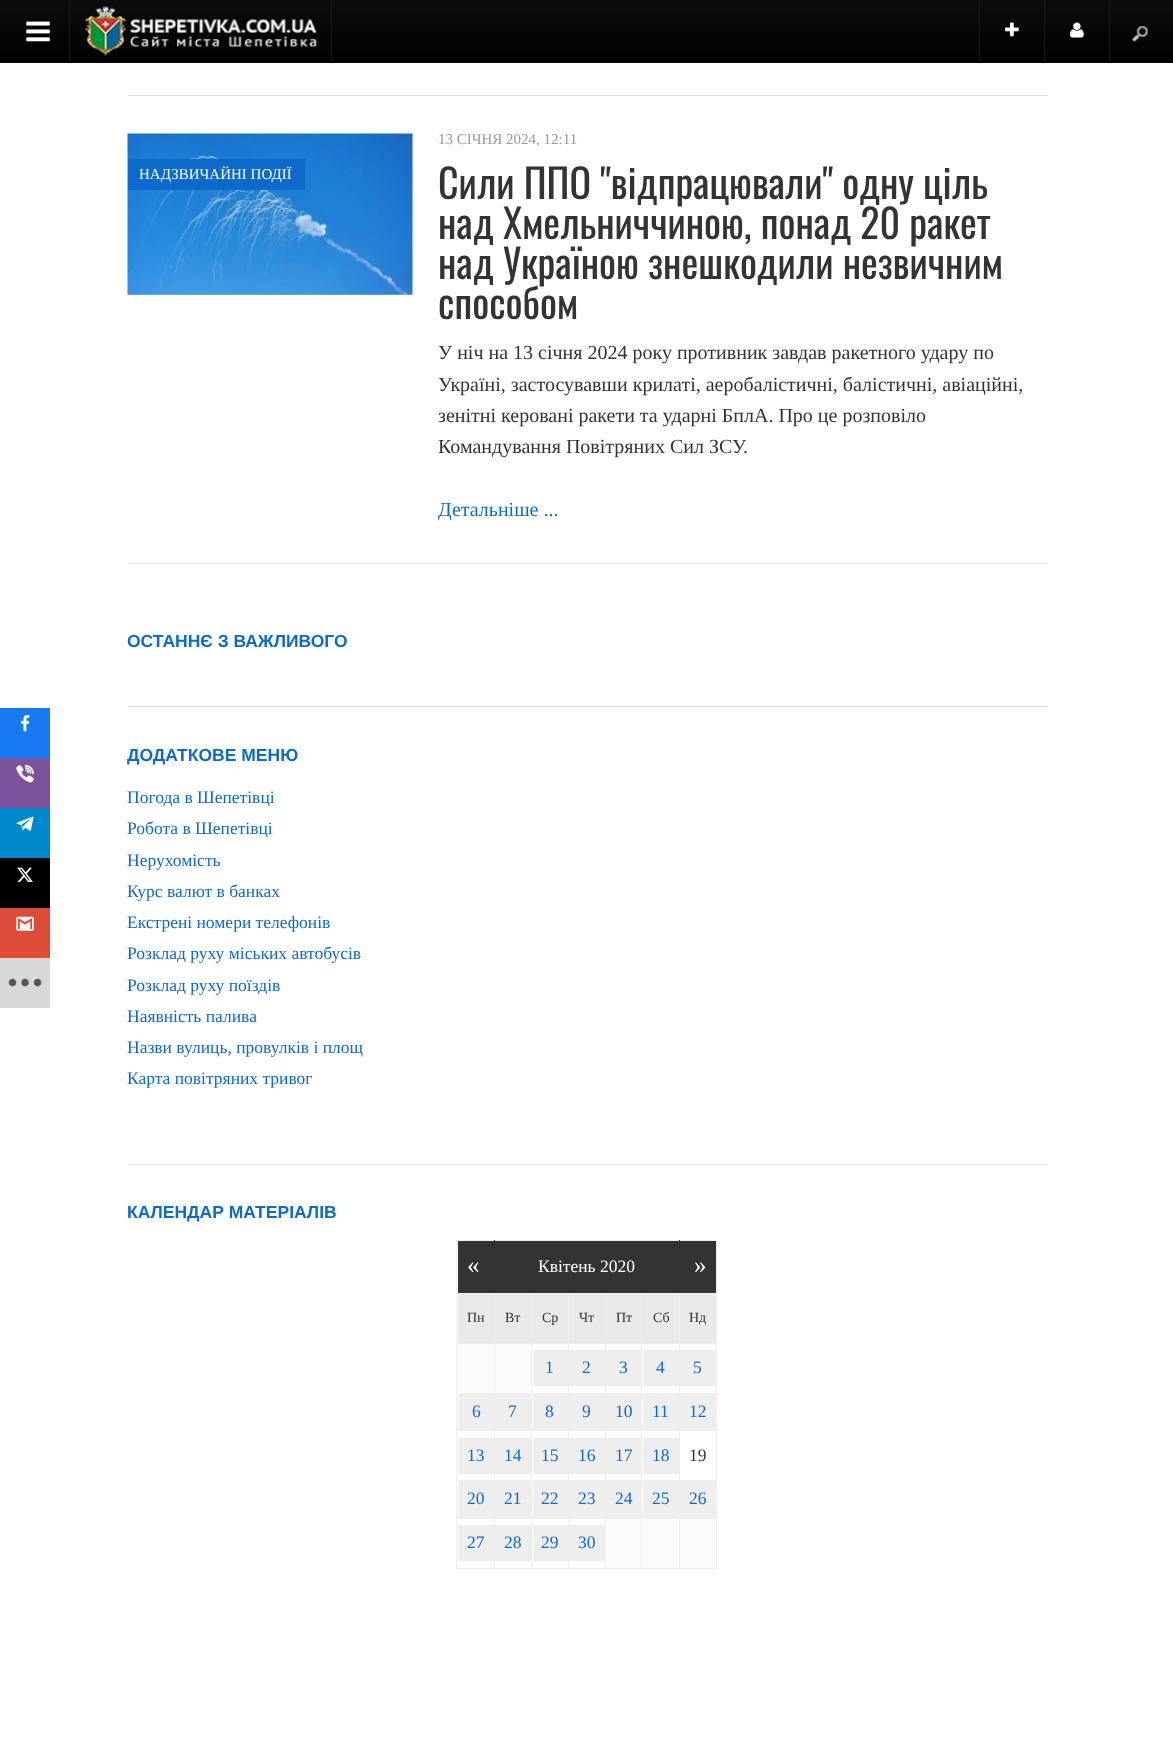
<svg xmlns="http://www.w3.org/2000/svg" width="1173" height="1743">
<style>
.a{font:15px Liberation Serif;fill:#fff}
.b{font:15px Liberation Serif;fill:#999}
.c{font:40px Oswald;fill:#333}
.d{font:20px Liberation Serif;fill:#333}
.e{font:20px Liberation Serif;fill:#0d6aca}
.f{font:bold 17.5px Liberation Sans;fill:#0d6aca}
.g{font:17.5px Liberation Serif;fill:#0d6aca}
.h{font:25px Liberation Serif;fill:#fff}
.i{font:17.5px Liberation Serif;fill:#fff}
.j{font:14px Liberation Serif;fill:#333}
.k{font:17.5px Liberation Serif;fill:#333}
</style>
<defs>
<linearGradient id="g1" gradientUnits="userSpaceOnUse" x1="587" y1="0" x2="587" y2="63"><stop offset="0" stop-color="#0d0d0d"/><stop offset="1" stop-color="#000"/></linearGradient>
<linearGradient id="g2" gradientUnits="userSpaceOnUse" x1="1141" y1="0" x2="1141" y2="63"><stop offset="0" stop-color="#0d0d0d"/><stop offset="1" stop-color="#000"/></linearGradient>
</defs>
<rect width="100%" height="100%" fill="#fff"/>
<path fill="url(#g1)" d="M0 0h1109v63H0z"/>
<image href="1.png" x="26" y="21" width="24" height="21"/>
<path fill="#1a1a1a" d="M331 0h1v63H331z"/>
<path fill="#1a1a1a" d="M69 0h1v63H69z"/>
<image href="2.png" x="85" y="6" width="232" height="50"/>
<path fill="#1a1a1a" d="M979 0h1v63H979z"/>
<path fill="#1a1a1a" d="M1044 0h1v63H1044z"/>
<image href="3.png" x="1005" y="22" width="14" height="15"/>
<image href="4.png" x="1070" y="22" width="14" height="16"/>
<path fill="url(#g2)" d="M1110 0h63v63H1110z"/>
<path fill="#1a1a1a" d="M1109 0h1v63H1109z"/>
<image href="5.png" x="1132" y="26" width="16" height="16"/>
<path fill="#1678f2" d="M0 708h50v50H0z"/>
<image href="6.png" x="20" y="715" width="10" height="17"/>
<path fill="#7d539d" d="M0 758h50v50H0z"/>
<image href="7.png" x="16" y="765" width="18" height="18"/>
<path fill="#08c" d="M0 808h50v50H0z"/>
<image href="8.png" x="16" y="816" width="18" height="15"/>
<path fill="#000" d="M0 858h50v50H0z"/>
<image href="9.png" x="17" y="867" width="16" height="15"/>
<path fill="#dd4b39" d="M0 908h50v50H0z"/>
<image href="10.png" x="16" y="916" width="18" height="15"/>
<path fill="#d8d8d8" d="M0 958h50v50H0z"/>
<image href="11.png" x="8" y="978" width="34" height="9"/>
<path fill="#ddd" d="M128 95h920v1H128z"/>
<path fill="#ddd" d="M128 563h920v1H128z"/>
<image href="12.png" x="127" y="133" width="286" height="162"/>
<path fill="#0d6aca" d="M128 159h177v31H128z"/>
<path fill="#ddd" d="M128 706h920v1H128z"/>
<path fill="#ddd" d="M128 1164h920v1H128z"/>
<path fill="#333" d="M458 1241h36v52H458z"/>
<path fill="#eee" d="M456 1240h262v1H456z"/>
<path fill="#eee" d="M679 1293h39v1H679z"/>
<path fill="#eee" d="M679 1343h39v1H679z"/>
<path fill="#eee" d="M679 1393h39v1H679z"/>
<path fill="#eee" d="M679 1430h39v1H679z"/>
<path fill="#eee" d="M679 1480h39v1H679z"/>
<path fill="#eee" d="M679 1518h39v1H679z"/>
<path fill="#eee" d="M716 1518h1v51H716z"/>
<path fill="#eee" d="M679 1568h39v1H679z"/>
<path fill="#eee" d="M679 1518h1v51H679z"/>
<path fill="#eee" d="M641 1518h39v1H641z"/>
<path fill="#eee" d="M679 1480h1v39H679z"/>
<path fill="#eee" d="M641 1480h39v1H641z"/>
<path fill="#eee" d="M679 1430h1v51H679z"/>
<path fill="#eee" d="M641 1430h39v1H641z"/>
<path fill="#eee" d="M679 1393h1v38H679z"/>
<path fill="#eee" d="M641 1393h39v1H641z"/>
<path fill="#eee" d="M679 1343h1v51H679z"/>
<path fill="#eee" d="M641 1343h39v1H641z"/>
<path fill="#eee" d="M679 1293h1v51H679z"/>
<path fill="#333" d="M679 1240h1v54H679z"/>
<path fill="#fbfbfb" d="M606 1519h73v49H606z"/>
<path fill="#eee" d="M641 1568h39v1H641z"/>
<path fill="#eee" d="M641 1518h1v51H641z"/>
<path fill="#eee" d="M605 1518h38v1H605z"/>
<path fill="#eee" d="M641 1480h1v39H641z"/>
<path fill="#eee" d="M605 1480h38v1H605z"/>
<path fill="#eee" d="M641 1430h1v51H641z"/>
<path fill="#eee" d="M605 1430h38v1H605z"/>
<path fill="#eee" d="M641 1393h1v38H641z"/>
<path fill="#eee" d="M605 1393h38v1H605z"/>
<path fill="#eee" d="M641 1343h1v51H641z"/>
<path fill="#eee" d="M605 1343h38v1H605z"/>
<path fill="#eee" d="M605 1568h38v1H605z"/>
<path fill="#eee" d="M605 1518h1v51H605z"/>
<path fill="#eee" d="M568 1518h38v1H568z"/>
<path fill="#eee" d="M605 1480h1v39H605z"/>
<path fill="#eee" d="M568 1480h38v1H568z"/>
<path fill="#eee" d="M605 1430h1v51H605z"/>
<path fill="#eee" d="M568 1430h38v1H568z"/>
<path fill="#eee" d="M605 1393h1v38H605z"/>
<path fill="#eee" d="M568 1393h38v1H568z"/>
<path fill="#eee" d="M605 1343h1v51H605z"/>
<path fill="#eee" d="M568 1343h38v1H568z"/>
<path fill="#eee" d="M568 1568h38v1H568z"/>
<path fill="#eee" d="M568 1518h1v51H568z"/>
<path fill="#eee" d="M531 1518h38v1H531z"/>
<path fill="#eee" d="M568 1480h1v39H568z"/>
<path fill="#eee" d="M531 1480h38v1H531z"/>
<path fill="#eee" d="M568 1430h1v51H568z"/>
<path fill="#eee" d="M531 1430h38v1H531z"/>
<path fill="#eee" d="M568 1393h1v38H568z"/>
<path fill="#eee" d="M531 1393h38v1H531z"/>
<path fill="#eee" d="M568 1343h1v51H568z"/>
<path fill="#eee" d="M531 1343h38v1H531z"/>
<path fill="#eee" d="M531 1568h38v1H531z"/>
<path fill="#eee" d="M531 1518h1v51H531z"/>
<path fill="#eee" d="M494 1518h39v1H494z"/>
<path fill="#eee" d="M531 1480h1v39H531z"/>
<path fill="#eee" d="M494 1480h39v1H494z"/>
<path fill="#eee" d="M531 1430h1v51H531z"/>
<path fill="#eee" d="M494 1430h39v1H494z"/>
<path fill="#eee" d="M531 1393h1v38H531z"/>
<path fill="#eee" d="M494 1393h39v1H494z"/>
<path fill="#eee" d="M531 1343h1v51H531z"/>
<path fill="#eee" d="M494 1343h39v1H494z"/>
<path fill="#eee" d="M494 1568h39v1H494z"/>
<path fill="#eee" d="M494 1518h1v51H494z"/>
<path fill="#eee" d="M456 1518h39v1H456z"/>
<path fill="#eee" d="M494 1480h1v39H494z"/>
<path fill="#eee" d="M456 1480h39v1H456z"/>
<path fill="#eee" d="M494 1430h1v51H494z"/>
<path fill="#eee" d="M456 1430h39v1H456z"/>
<path fill="#eee" d="M494 1393h1v38H494z"/>
<path fill="#eee" d="M456 1393h39v1H456z"/>
<path fill="#eee" d="M494 1343h1v51H494z"/>
<path fill="#eee" d="M456 1343h39v1H456z"/>
<path fill="#eee" d="M494 1293h1v51H494z"/>
<path fill="#eee" d="M531 1293h1v51H531z"/>
<path fill="#eee" d="M568 1293h1v51H568z"/>
<path fill="#eee" d="M605 1293h1v51H605z"/>
<path fill="#e9e9e9" d="M606 1294h73v49H606z"/>
<path fill="#eee" d="M641 1293h1v51H641z"/>
<path fill="#eee" d="M494 1293h186v1H494z"/>
<path fill="#333" d="M494 1240h1v54H494z"/>
<path fill="#eee" d="M456 1568h39v1H456z"/>
<path fill="#eee" d="M456 1518h1v51H456z"/>
<path fill="#eee" d="M456 1480h1v39H456z"/>
<path fill="#eee" d="M456 1430h1v51H456z"/>
<path fill="#eee" d="M456 1393h1v38H456z"/>
<path fill="#eee" d="M456 1293h1v101H456z"/>
<path fill="#eee" d="M456 1293h39v1H456z"/>
<path fill="#eee" d="M456 1240h1v54H456z"/>
<path fill="#333" d="M495 1241h184v52H495z"/>
<path fill="#333" d="M680 1241h36v52H680z"/>
<path fill="#eee" d="M716 1480h1v39H716z"/>
<path fill="#eee" d="M716 1430h1v51H716z"/>
<path fill="#eee" d="M716 1393h1v38H716z"/>
<path fill="#eee" d="M716 1343h1v51H716z"/>
<path fill="#eee" d="M716 1293h1v51H716z"/>
<path fill="#eee" d="M716 1240h1v54H716z"/>
<path fill="#e9e9e9" d="M458 1294h36v49H458z"/>
<path fill="#e9e9e9" d="M495 1294h36v49H495z"/>
<path fill="#e9e9e9" d="M532 1294h36v49H532z"/>
<path fill="#e9e9e9" d="M569 1294h36v49H569z"/>
<path fill="#e9e9e9" d="M680 1294h36v49H680z"/>
<path fill="#fbfbfb" d="M458 1344h36v49H458z"/>
<path fill="#fbfbfb" d="M495 1344h36v49H495z"/>
<path fill="#eee" d="M533 1350h35v36H533z"/>
<path fill="#eee" d="M569 1350h36v36H569z"/>
<path fill="#eee" d="M606 1350h35v36H606z"/>
<path fill="#eee" d="M643 1350h36v36H643z"/>
<path fill="#eee" d="M680 1350h36v36H680z"/>
<path fill="#eee" d="M458 1394h36v36H458z"/>
<path fill="#eee" d="M495 1394h36v36H495z"/>
<path fill="#eee" d="M533 1394h35v36H533z"/>
<path fill="#eee" d="M569 1394h36v36H569z"/>
<path fill="#eee" d="M606 1394h35v36H606z"/>
<path fill="#eee" d="M643 1394h36v36H643z"/>
<path fill="#eee" d="M680 1394h36v36H680z"/>
<path fill="#eee" d="M458 1438h36v36H458z"/>
<path fill="#eee" d="M495 1438h36v36H495z"/>
<path fill="#eee" d="M533 1438h35v36H533z"/>
<path fill="#eee" d="M569 1438h36v36H569z"/>
<path fill="#eee" d="M606 1438h35v36H606z"/>
<path fill="#eee" d="M643 1438h36v36H643z"/>
<path fill="#eee" d="M458 1481h36v37H458z"/>
<path fill="#eee" d="M495 1481h36v37H495z"/>
<path fill="#eee" d="M533 1481h35v37H533z"/>
<path fill="#eee" d="M569 1481h36v37H569z"/>
<path fill="#eee" d="M606 1481h35v37H606z"/>
<path fill="#eee" d="M643 1481h36v37H643z"/>
<path fill="#eee" d="M680 1481h36v37H680z"/>
<path fill="#eee" d="M458 1525h36v36H458z"/>
<path fill="#eee" d="M495 1525h36v36H495z"/>
<path fill="#eee" d="M533 1525h35v36H533z"/>
<path fill="#eee" d="M569 1525h36v36H569z"/>
<path fill="#fbfbfb" d="M680 1519h36v49H680z"/>
<text class="a" x="139" y="179">НАДЗВИЧАЙНІ ПОДІЇ</text>
<text class="b" x="438" y="144">13 СІЧНЯ 2024, 12:11</text>
<text class="c" x="438" y="199">Сили ППО "відпрацювали" одну ціль</text>
<text class="c" x="438" y="239">над Хмельниччиною, понад 20 ракет</text>
<text class="c" x="438" y="279">над Україною знешкодили незвичним</text>
<text class="c" x="438" y="319">способом</text>
<text class="d" x="438" y="359">У ніч на 13 січня 2024 року противник завдав ракетного удару по</text>
<text class="d" x="438" y="391">Україні, застосувавши крилаті, аеробалістичні, балістичні, авіаційні,</text>
<text class="d" x="438" y="422">зенітні керовані ракети та ударні БплА. Про це розповіло</text>
<text class="d" x="438" y="453">Командування Повітряних Сил ЗСУ.</text>
<text class="e" x="438" y="516">Детальніше ...</text>
<text class="f" x="127" y="647">ОСТАННЄ З ВАЖЛИВОГО</text>
<text class="f" x="127" y="761">ДОДАТКОВЕ МЕНЮ</text>
<text class="g" x="127" y="803">Погода в Шепетівці</text>
<text class="g" x="127" y="834">Робота в Шепетівці</text>
<text class="g" x="127" y="866">Нерухомість</text>
<text class="g" x="127" y="897">Курс валют в банках</text>
<text class="g" x="127" y="928">Екстрені номери телефонів</text>
<text class="g" x="127" y="959">Розклад руху міських автобусів</text>
<text class="g" x="127" y="991">Розклад руху поїздів</text>
<text class="g" x="127" y="1022">Наявність палива</text>
<text class="g" x="127" y="1053">Назви вулиць, провулків і площ</text>
<text class="g" x="127" y="1084">Карта повітряних тривог</text>
<text class="f" x="127" y="1218">КАЛЕНДАР МАТЕРІАЛІВ</text>
<text class="h" x="467" y="1273">«</text>
<text class="i" x="538" y="1272">Квітень 2020</text>
<text class="h" x="694" y="1273">»</text>
<text class="j" x="467" y="1322">Пн</text>
<text class="j" x="505" y="1322">Вт</text>
<text class="j" x="542" y="1322">Ср</text>
<text class="j" x="579" y="1322">Чт</text>
<text class="j" x="616" y="1322">Пт</text>
<text class="j" x="653" y="1322">Сб</text>
<text class="j" x="689" y="1322">Нд</text>
<text class="g" x="545" y="1373">1</text>
<text class="g" x="582" y="1373">2</text>
<text class="g" x="619" y="1373">3</text>
<text class="g" x="656" y="1373">4</text>
<text class="g" x="693" y="1373">5</text>
<text class="g" x="472" y="1417">6</text>
<text class="g" x="508" y="1417">7</text>
<text class="g" x="545" y="1417">8</text>
<text class="g" x="582" y="1417">9</text>
<text class="g" x="615" y="1417">10</text>
<text class="g" x="652" y="1417">11</text>
<text class="g" x="689" y="1417">12</text>
<text class="g" x="467" y="1461">13</text>
<text class="g" x="504" y="1461">14</text>
<text class="g" x="541" y="1461">15</text>
<text class="g" x="578" y="1461">16</text>
<text class="g" x="615" y="1461">17</text>
<text class="g" x="652" y="1461">18</text>
<text class="k" x="689" y="1461">19</text>
<text class="g" x="467" y="1504">20</text>
<text class="g" x="504" y="1504">21</text>
<text class="g" x="541" y="1504">22</text>
<text class="g" x="578" y="1504">23</text>
<text class="g" x="615" y="1504">24</text>
<text class="g" x="652" y="1504">25</text>
<text class="g" x="689" y="1504">26</text>
<text class="g" x="467" y="1548">27</text>
<text class="g" x="504" y="1548">28</text>
<text class="g" x="541" y="1548">29</text>
<text class="g" x="578" y="1548">30</text>
</svg>
